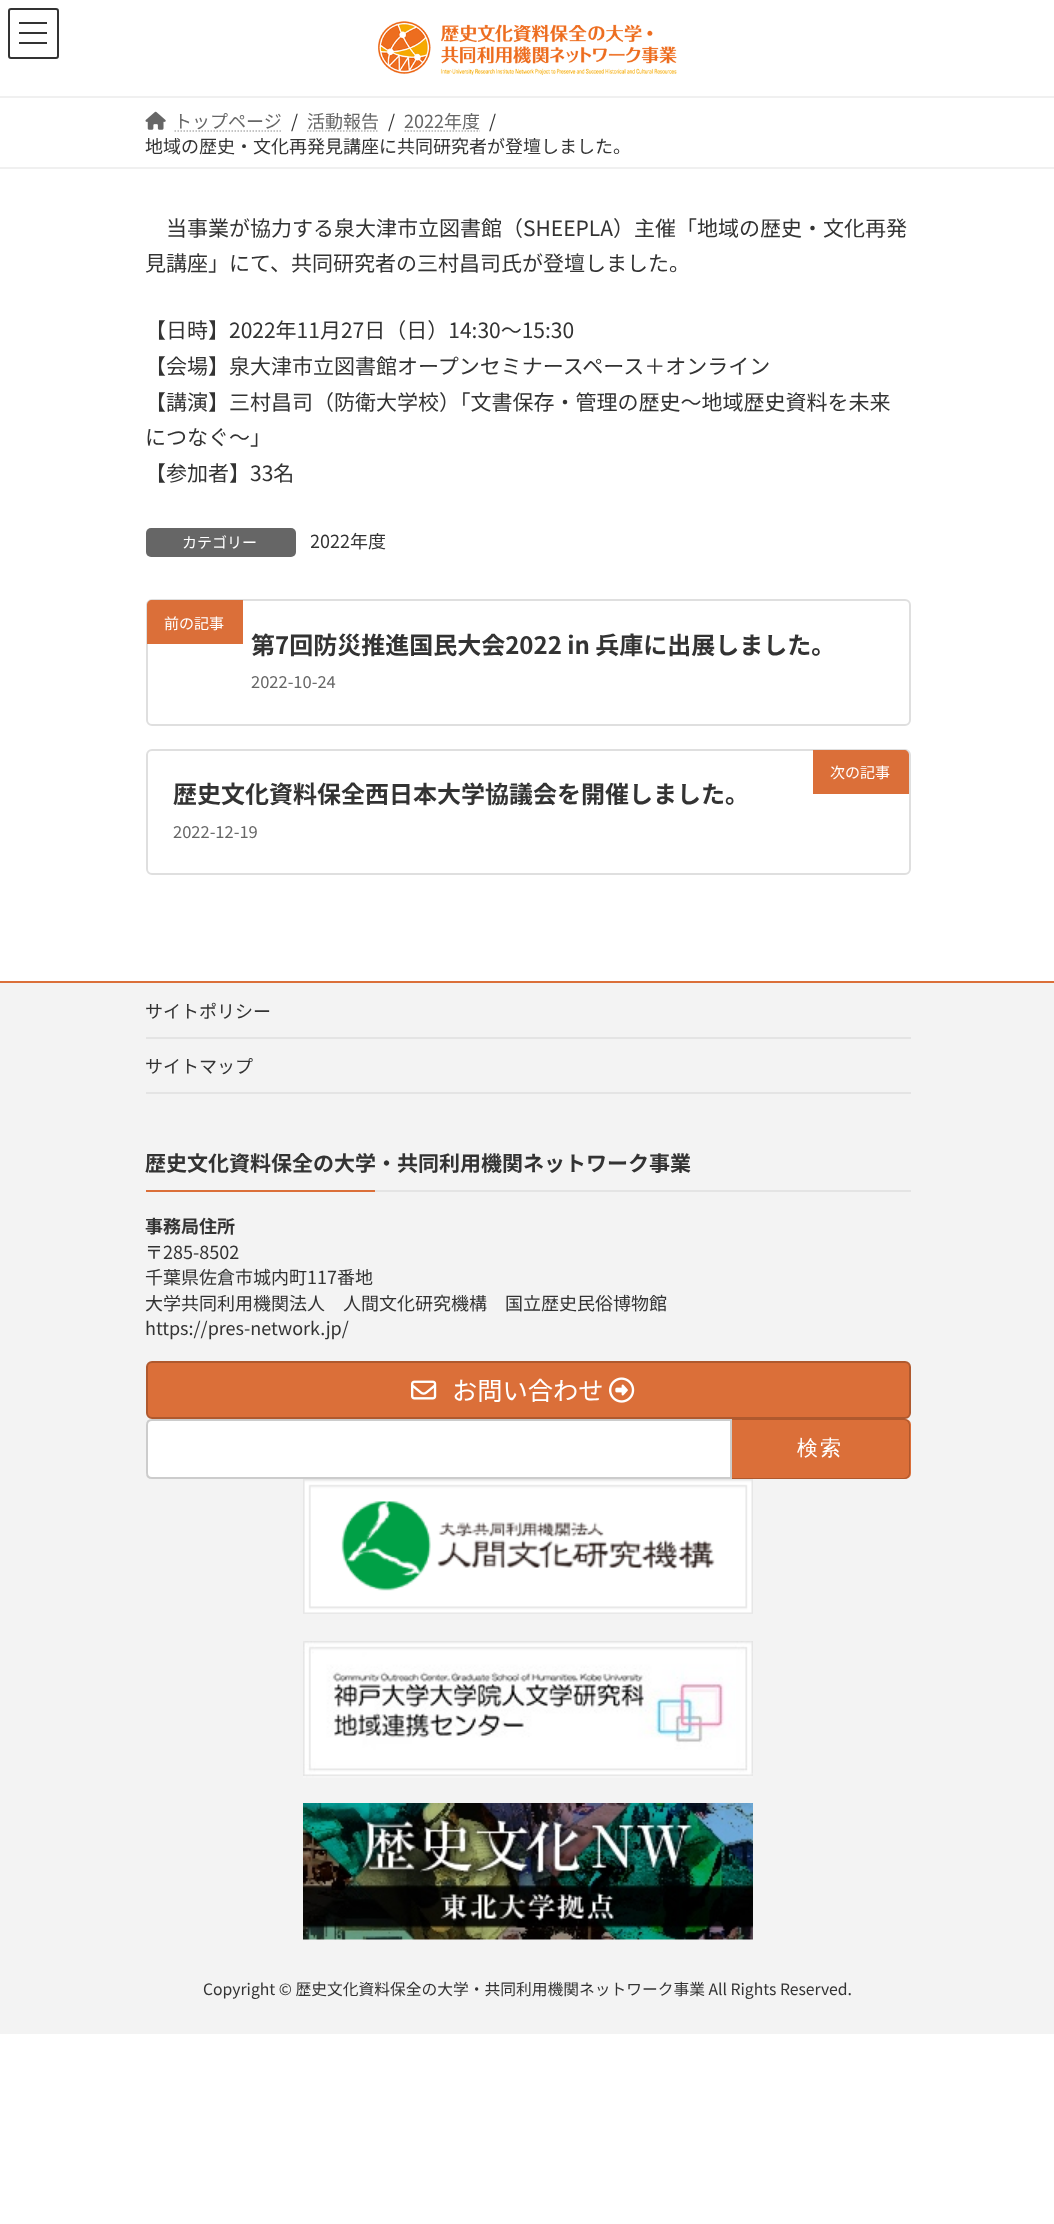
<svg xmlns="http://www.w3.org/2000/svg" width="1054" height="2224">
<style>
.a{font:18px Noto Sans JP;fill:#666}
.b{font:18px Noto Sans JP;fill:#333}
.c{font:21px Noto Sans JP;fill:#333}
.d{font:15px Noto Sans JP;fill:#fff}
.e{font:bold 24px Noto Sans JP;fill:#333}
.f{font:16.5px Noto Sans JP;fill:#666}
.g{font:bold 21px Noto Sans JP;fill:#333}
.h{font:bold 18px Noto Sans JP;fill:#333}
.i{font:25.25px Noto Sans JP;fill:#fff}
.j{font:500 21px WenQuanYi Zen Hei;letter-spacing:2px;fill:#fff}
.k{font:15.75px Noto Sans JP;fill:#333}
</style>
<defs>
<clipPath id="clip1"><path d="M311 528h600v26H311z"/></clipPath>
</defs>
<rect width="100%" height="100%" fill="#fff"/>
<path fill="#333" d="M19 22h28v2H19z"/>
<path fill="#333" d="M19 32h28v2H19z"/>
<path fill="#333" d="M19 42h28v2H19z"/>
<rect fill="none" stroke="#333" stroke-width="2" x="9" y="9" width="49" height="49" rx="2"/>
<image href="1.png" x="378" y="21" width="299" height="54"/>
<path fill="#f0f0f0" d="M0 96h1054v2H0z"/>
<path fill="#f0f0f0" d="M0 167h1054v2H0z"/>
<image href="2.png" x="145" y="111" width="21" height="19"/>
<path fill="none" stroke="#b3b3b3" stroke-width="1.5" stroke-dasharray="1.5 1.5" d="M174.5 131h107.5"/>
<path fill="none" stroke="#b3b3b3" stroke-width="1.5" stroke-dasharray="1.5 1.5" d="M307 131h72"/>
<path fill="none" stroke="#b3b3b3" stroke-width="1.5" stroke-dasharray="1.5 1.5" d="M404.5 131h75.5"/>
<rect fill="#666" x="146" y="528" width="150" height="29" rx="5"/>
<rect fill="none" stroke="#dfdfdf" stroke-width="2" x="147" y="600" width="763" height="125" rx="5"/>
<path fill="#db6f39" d="M152 600h91v44h-96v-39c0-3 2-5 5-5z"/>
<rect fill="none" stroke="#dfdfdf" stroke-width="2" x="147" y="750" width="763" height="124" rx="5"/>
<path fill="#db6f39" d="M813 750h91c3 0 5 2 5 5v39h-96z"/>
<path fill="#f3f3f3" d="M0 983h1054v1051H0z"/>
<path fill="#db6f39" d="M0 981h1054v2H0z"/>
<path fill="#e4e4e4" d="M146 1037h765v2H146z"/>
<path fill="#e4e4e4" d="M146 1092h765v2H146z"/>
<path fill="#e4e4e4" d="M375 1190h536v2H375z"/>
<path fill="#db6f39" d="M146 1190h229v2H146z"/>
<rect fill="#db6f39" stroke="#af592e" stroke-width="2" x="147" y="1362" width="763" height="56" rx="5"/>
<image href="3.png" x="411" y="1380" width="26" height="20"/>
<image href="4.png" x="609" y="1377" width="26" height="26"/>
<path fill="#fff" d="M152 1419h580v60h-580c-3.5 0-6-2.5-6-6v-48c0-3.5 2.5-6 6-6z"/>
<path fill="none" stroke="#00000033" stroke-width="2" d="M152 1420h579v58h-579c-3 0-5-2-5-5v-48c0-3 2-5 5-5z"/>
<path fill="#db6f39" d="M732 1419h173c3.5 0 6 2.5 6 6v48c0 3.5-2.5 6-6 6h-173z"/>
<path fill="#00000033" fill-rule="evenodd" d="M732 1419h172c4 0 6 3 6 6v48c0 3-2 6-6 6h-172zm0 1h172c3 0 5 3 5 5v48c0 2-2 5-5 5h-172z"/>
<image href="5.png" x="303" y="1479" width="450" height="135"/>
<image href="6.png" x="303" y="1641" width="450" height="137"/>
<image href="7.png" x="303" y="1803" width="450" height="137"/>
<text class="a" x="174" y="128">トップページ</text>
<text class="b" x="291" y="128">/</text>
<text class="a" x="307" y="128">活動報告</text>
<text class="b" x="388" y="128">/</text>
<text class="a" x="404" y="128">2022年度</text>
<text class="b" x="489" y="128">/</text>
<text class="b" x="145" y="153">地域の歴史・文化再発見講座に共同研究者が登壇しました。</text>
<text class="c" x="166" y="236">当事業が協力する泉大津市立図書館（SHEEPLA）主催「地域の歴史・文化再発</text>
<text class="c" x="145" y="271">見講座」にて、共同研究者の三村昌司氏が登壇しました。</text>
<text class="c" x="145" y="338">【日時】2022年11月27日（日）14:30～15:30</text>
<text class="c" x="145" y="374">【会場】泉大津市立図書館オープンセミナースペース＋オンライン</text>
<text class="c" x="145" y="410">【講演】三村昌司（防衛大学校）「文書保存・管理の歴史～地域歴史資料を未来</text>
<text class="c" x="145" y="445">につなぐ～」</text>
<text class="c" x="145" y="481">【参加者】33名</text>
<text class="d" x="182" y="548">カテゴリー</text>
<g clip-path="url(#clip1)">
<text class="b" x="310" y="548">2022年度</text>
</g>
<text class="d" x="164" y="629">前の記事</text>
<text class="e" x="251" y="654">第7回防災推進国民大会2022 in 兵庫に出展しました。</text>
<text class="f" x="251" y="688">2022-10-24</text>
<text class="d" x="830" y="778">次の記事</text>
<text class="e" x="173" y="803">歴史文化資料保全西日本大学協議会を開催しました。</text>
<text class="f" x="173" y="838">2022-12-19</text>
<text class="b" x="145" y="1018">サイトポリシー</text>
<text class="b" x="145" y="1073">サイトマップ</text>
<text class="g" x="145" y="1171">歴史文化資料保全の大学・共同利用機関ネットワーク事業</text>
<text class="h" x="145" y="1233">事務局住所</text>
<text class="b" x="145" y="1259">〒285-8502</text>
<text class="b" x="145" y="1284">千葉県佐倉市城内町117番地</text>
<text class="b" x="145" y="1310">大学共同利用機関法人　人間文化研究機構　国立歴史民俗博物館</text>
<text class="b" x="145" y="1335">https://pres-network.jp/</text>
<text class="i" x="452" y="1400">お問い合わせ</text>
<text class="j" x="797" y="1455">検索</text>
<text class="k" x="203" y="1995">Copyright © 歴史文化資料保全の大学・共同利用機関ネットワーク事業 All Rights Reserved.</text>
</svg>
